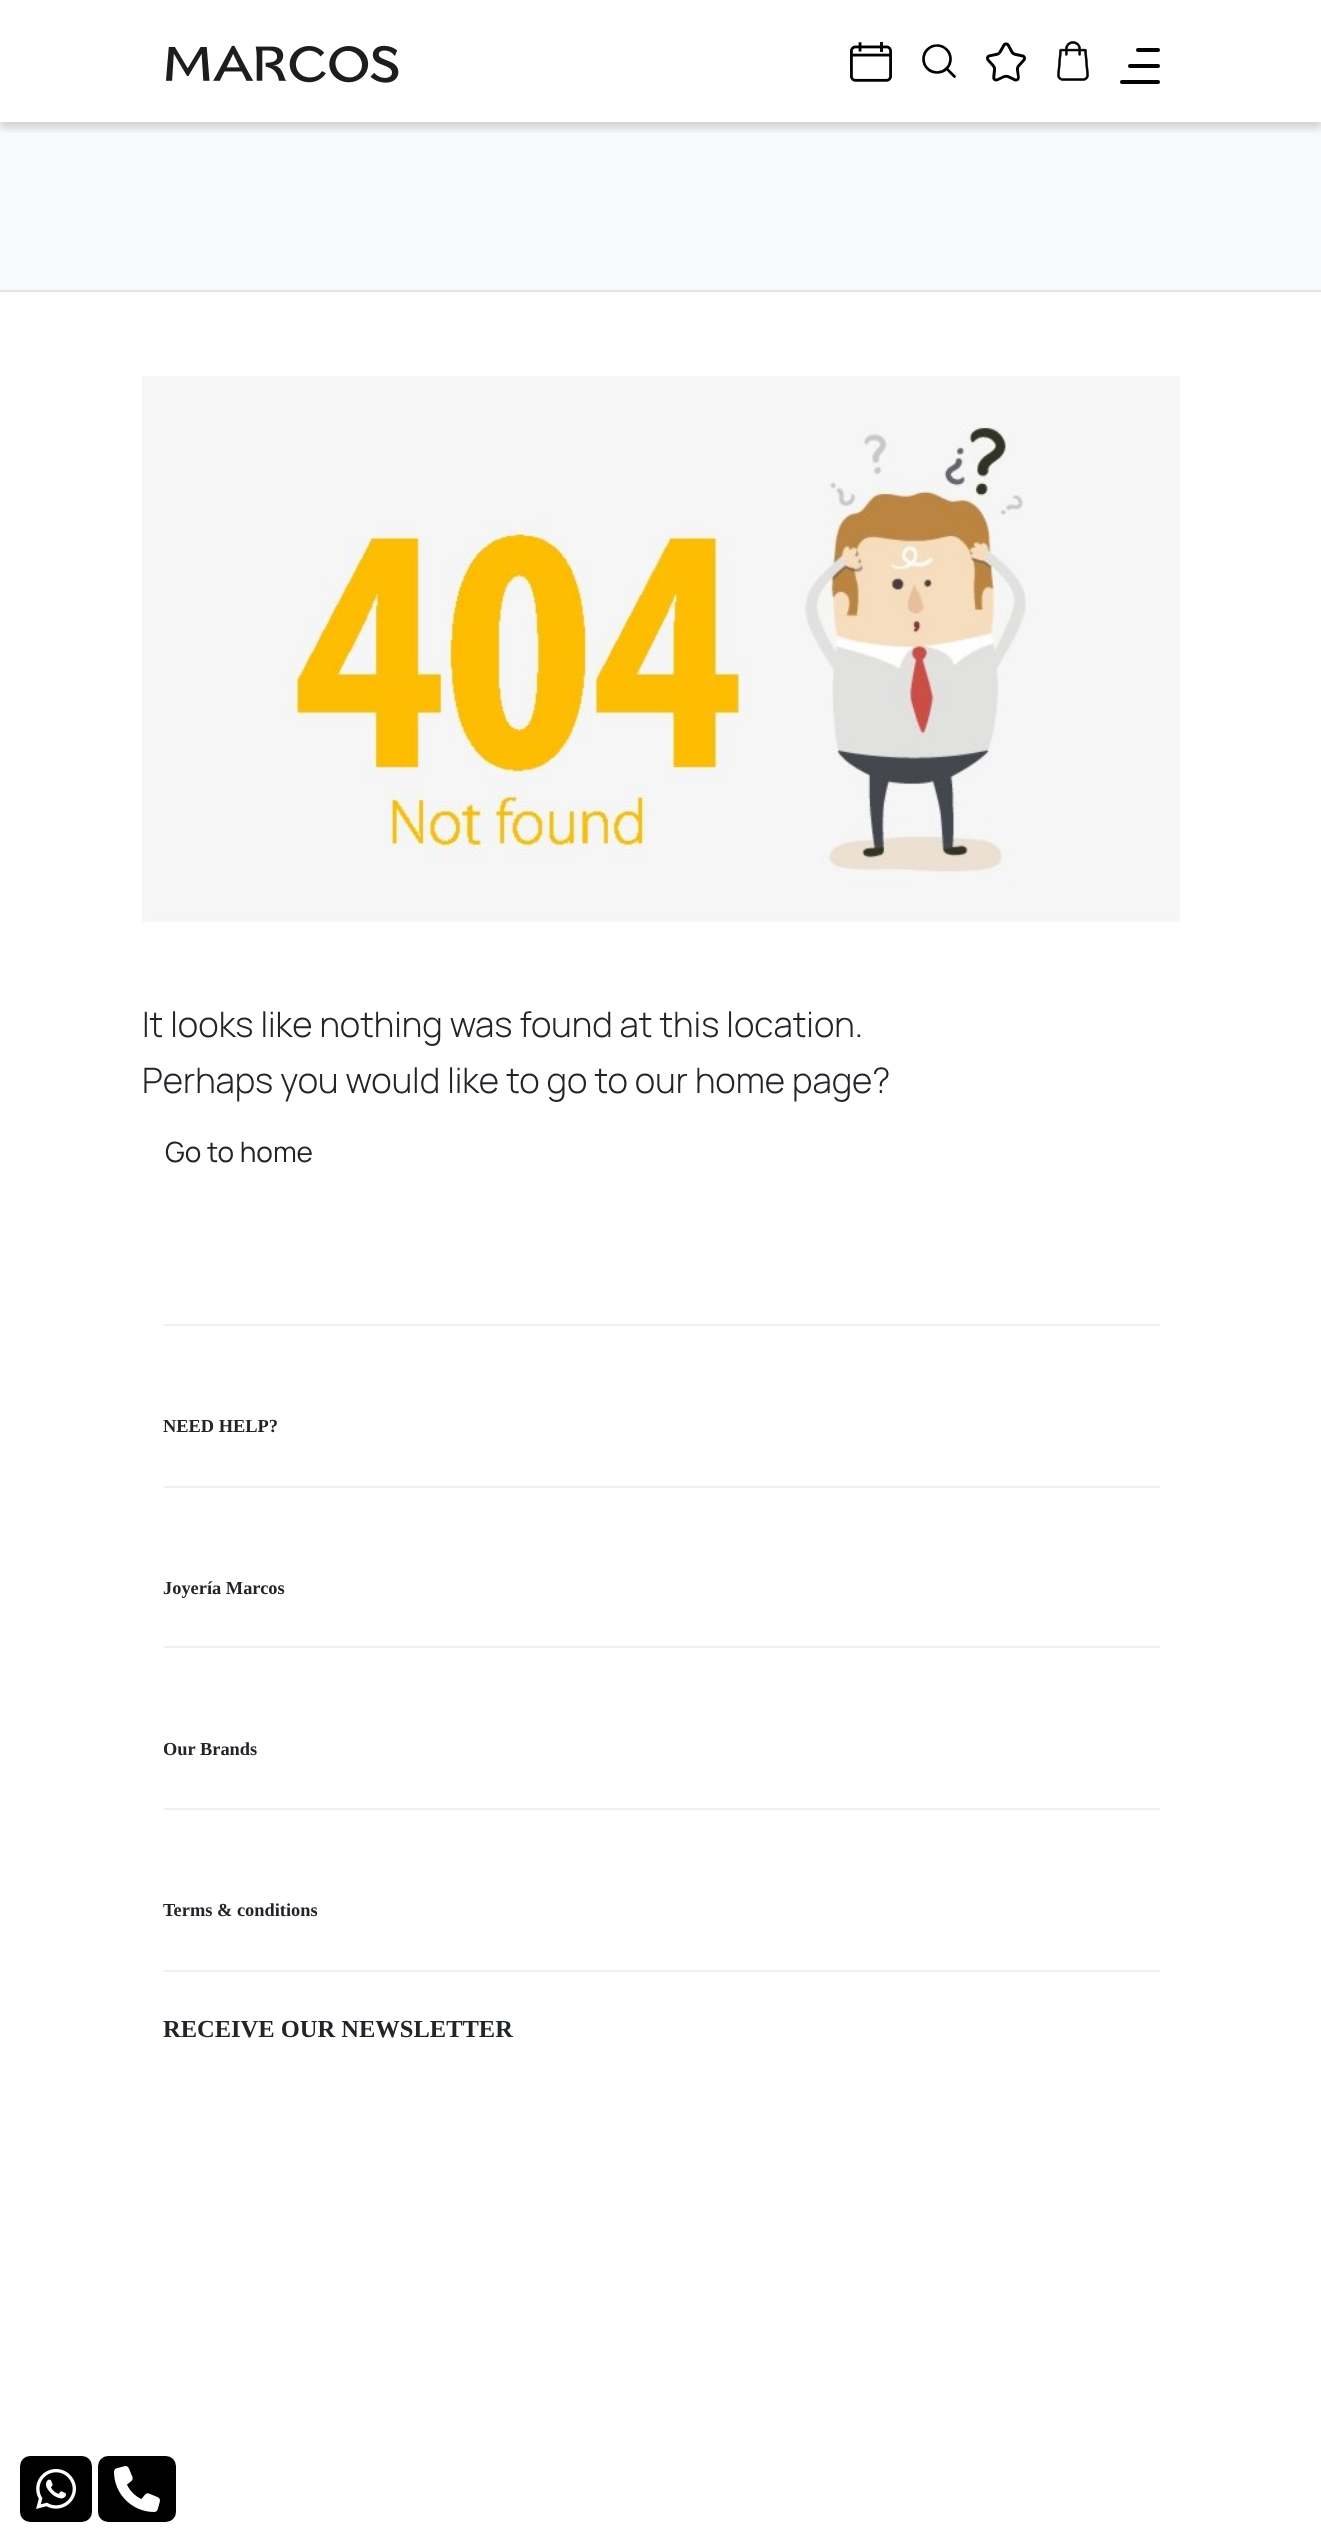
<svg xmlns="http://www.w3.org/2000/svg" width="1321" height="2541">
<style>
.a{font:300 35px Manrope;fill:#212529}
.b{font:28px Manrope;fill:#212529}
.c{font:bold 18.4px Liberation Serif;fill:#212529}
.d{font:bold 24.5px Liberation Serif;fill:#212529}
</style>
<defs>
<clipPath id="clip1"><path d="M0 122h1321v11H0z"/></clipPath>
</defs>
<rect width="100%" height="100%" fill="#fff"/>
<path fill="#f8f9fa" d="M0 122h1321v168H0z"/>
<g clip-path="url(#clip1)">
<path fill="#00000029" filter="blur(4px)" d="M0 6h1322v122H0z"/>
</g>
<image href="1.png" x="166" y="45" width="233" height="38"/>
<image href="2.png" x="850" y="42" width="42" height="40"/>
<circle fill="none" stroke="#000" stroke-width="2.7" cx="937" cy="59" r="13.5"/>
<path fill="none" stroke="#000" stroke-width="2.7" stroke-linecap="round" stroke-linejoin="round" d="M954.5 76.5l-7-7"/>
<image href="3.png" x="986" y="42" width="40" height="40"/>
<image href="4.png" x="1057" y="41" width="32" height="40"/>
<rect fill="#000" x="1136" y="48" width="24" height="4" rx="2"/>
<rect fill="#000" x="1128" y="64" width="32" height="4" rx="2"/>
<rect fill="#000" x="1120" y="80" width="40" height="4" rx="2"/>
<path fill="#e6e6e6" d="M0 290h1321v2H0z"/>
<image href="5.png" x="142" y="376" width="1038" height="546"/>
<path fill="#efefef" d="M164 1324h996v2H164z"/>
<path fill="#efefef" d="M164 1486h996v2H164z"/>
<path fill="#efefef" d="M164 1646h996v2H164z"/>
<path fill="#efefef" d="M164 1808h996v2H164z"/>
<path fill="#efefef" d="M164 1970h996v2H164z"/>
<rect fill="#000" x="20" y="2456" width="72" height="66" rx="10"/>
<image href="6.png" x="36" y="2469" width="40" height="40"/>
<rect fill="#000" x="98" y="2456" width="78" height="66" rx="10"/>
<image href="7.png" x="114" y="2466" width="46" height="46"/>
<text class="a" x="142" y="1037">It looks like nothing was found at this location.</text>
<text class="a" x="142" y="1093">Perhaps you would like to go to our home page?</text>
<text class="b" x="165" y="1162">Go to home</text>
<text class="c" x="163" y="1432">NEED HELP?</text>
<text class="c" x="163" y="1594">Joyería Marcos</text>
<text class="c" x="163" y="1755">Our Brands</text>
<text class="c" x="163" y="1916">Terms &amp; conditions</text>
<text class="d" x="163" y="2037">RECEIVE OUR NEWSLETTER</text>
</svg>
